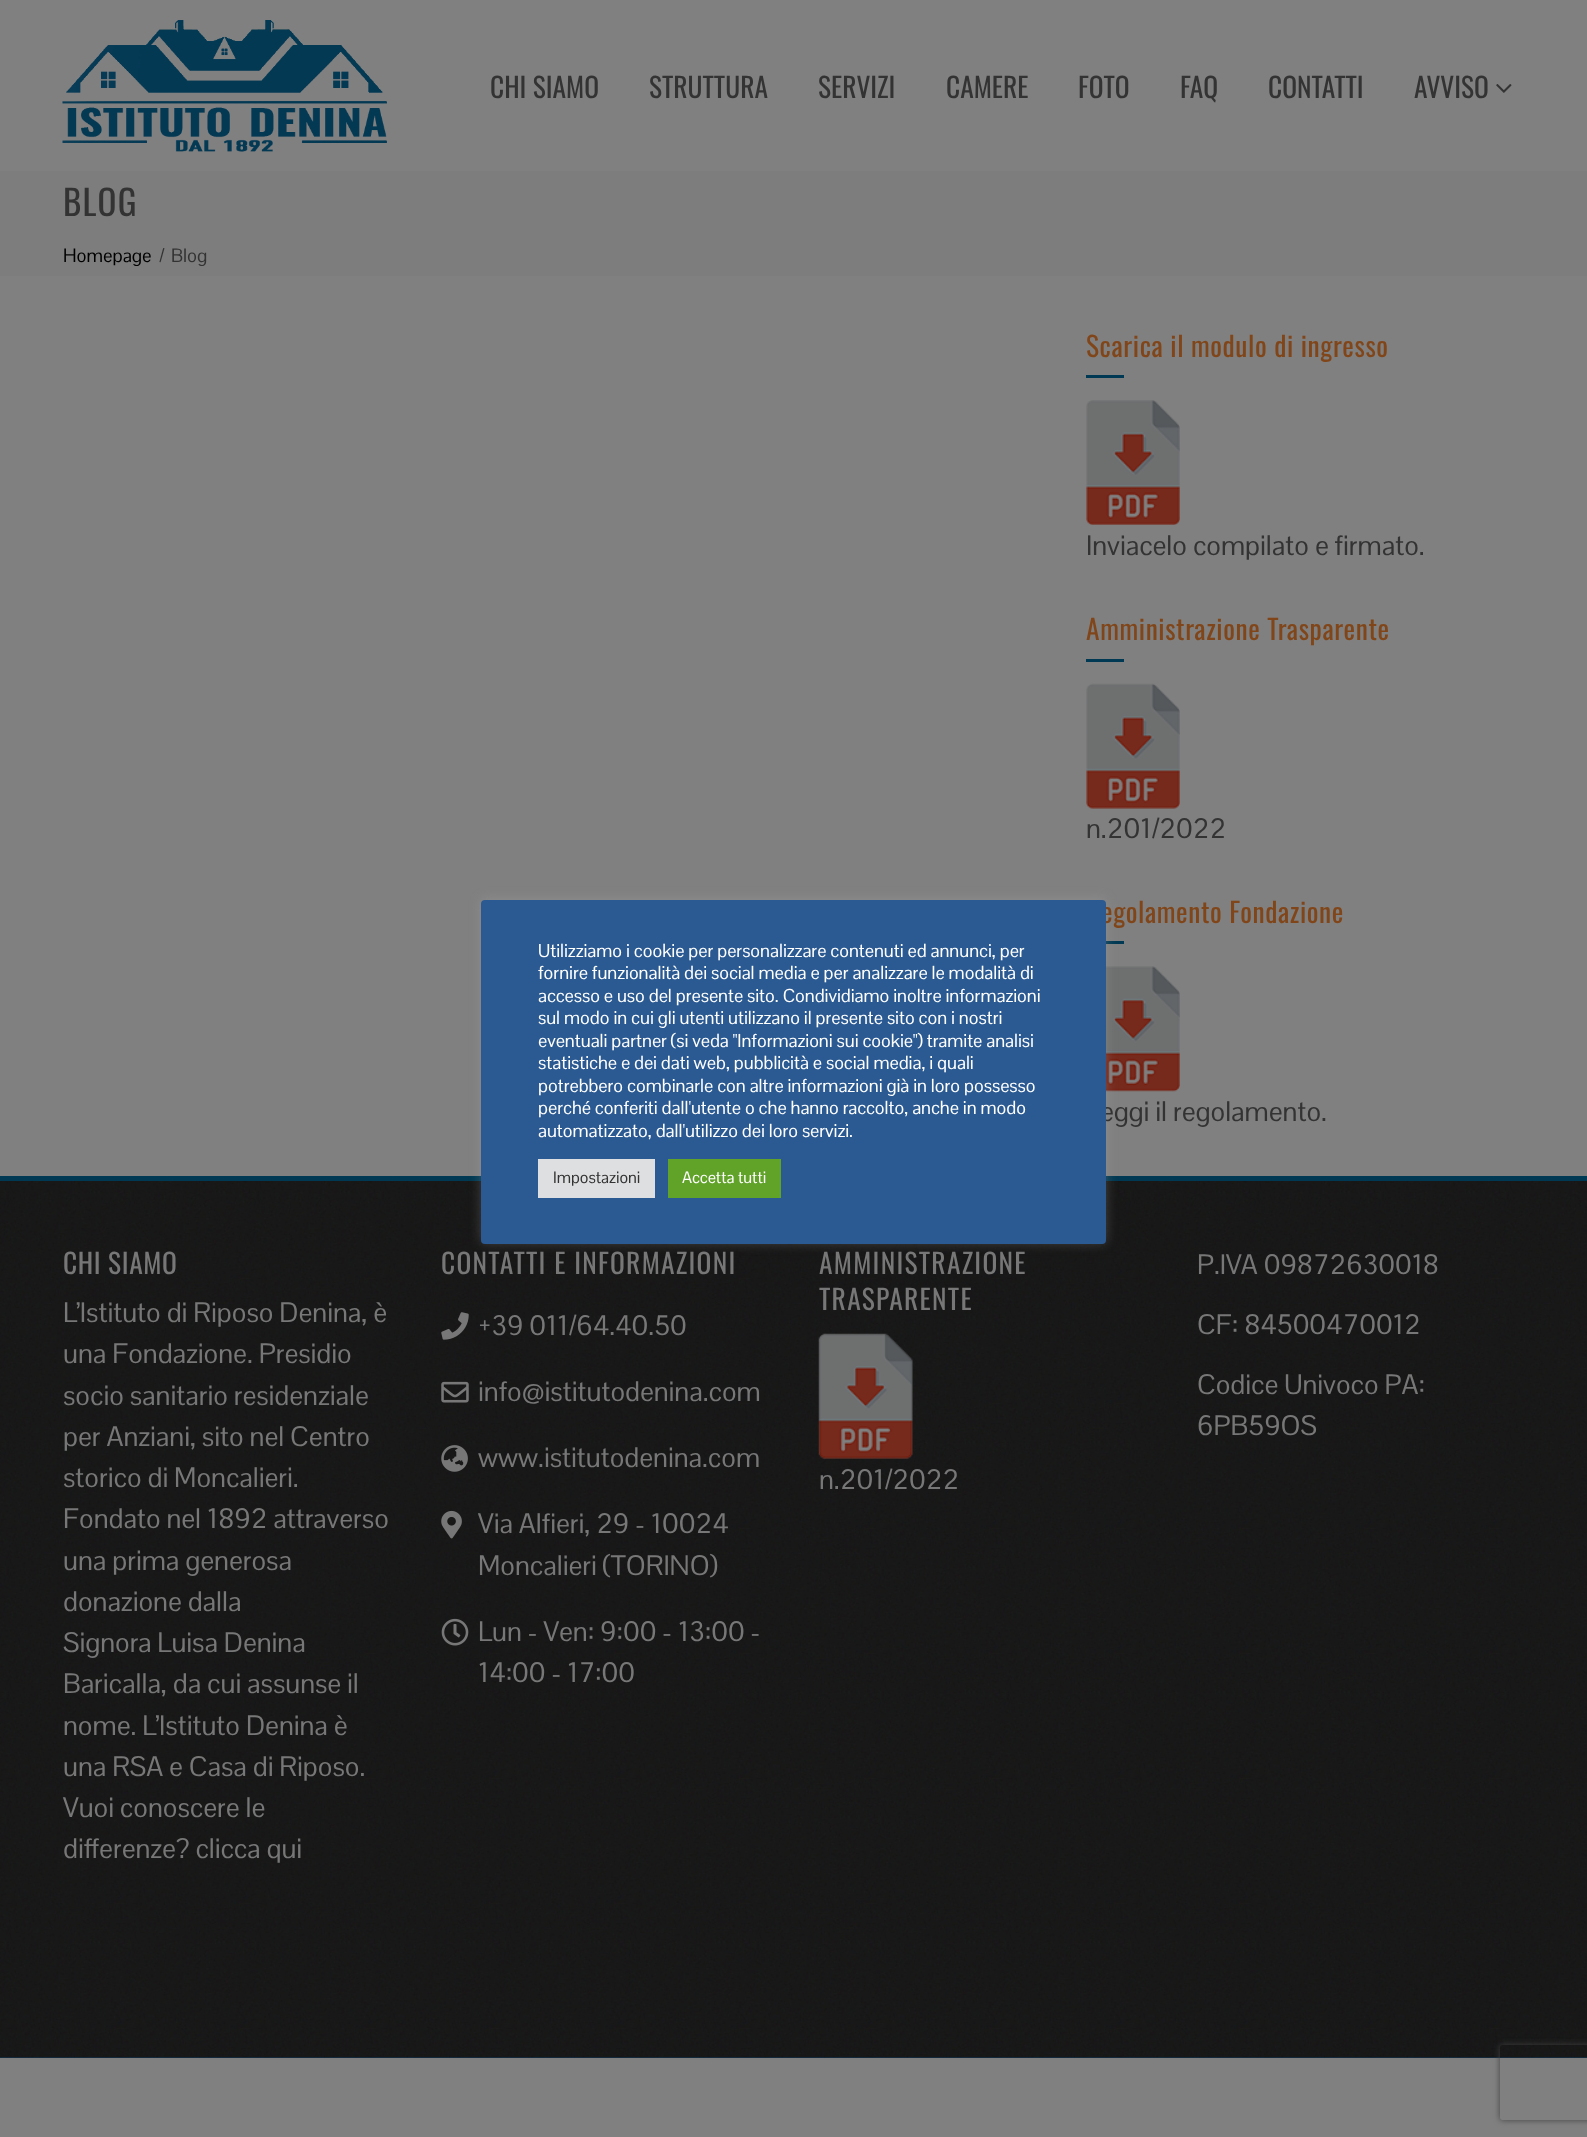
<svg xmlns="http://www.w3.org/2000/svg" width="1587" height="2137">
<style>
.a{font:27.5px Oswald;fill:#333}
.b{font:35px Oswald;letter-spacing:1.25px;fill:#333}
.c{font:18.75px Pontano Sans;fill:#000}
.d{font:18.75px Pontano Sans;fill:#333}
.e{font:27.5px Oswald;letter-spacing:0.6px;fill:#80461a}
.f{font:27.5px Pontano Sans;fill:#333}
.g{font:27.5px Oswald;letter-spacing:0.6px;fill:#777}
.h{font:27.5px Pontano Sans;fill:#777}
.i{font:27.5px Oswald;letter-spacing:1.25px;fill:#777}
.j{font:18.3px Pontano Sans;fill:#fff}
.k{font:16.25px Pontano Sans;fill:#333}
.l{font:16.25px Pontano Sans;fill:#fff}
</style>
<defs>
<clipPath id="clip1"><path d="M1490 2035h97v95h-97zm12.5 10h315c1.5 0 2.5 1 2.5 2.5v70c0 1.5-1 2.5-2.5 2.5h-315c-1.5 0-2.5-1-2.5-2.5v-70c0-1.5 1-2.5 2.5-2.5z" clip-rule="evenodd"/></clipPath>
</defs>
<rect width="100%" height="100%" fill="#808080"/>
<image href="1.png" x="62" y="20" width="325" height="132"/>
<image href="2.png" x="1496" y="84" width="16" height="9"/>
<path fill="#7d7d7d" d="M0 171h1587v105H0z"/>
<path fill="#003953" d="M1086 375h38v3H1086z"/>
<image href="3.png" x="1086" y="400" width="94" height="125"/>
<path fill="#003953" d="M1086 659h38v3H1086z"/>
<image href="4.png" x="1086" y="683" width="94" height="126"/>
<path fill="#003953" d="M1106 941h18v3H1106z"/>
<image href="5.png" x="1106" y="966" width="74" height="126"/>
<path fill="#0f3a5f" d="M0 2057h1587v1H0z"/>
<image href="6.png" x="0" y="1181" width="1587" height="877"/>
<path fill="#003953" d="M0 1176h1587v5H0z"/>
<image href="7.png" x="441" y="1312" width="28" height="28"/>
<image href="8.png" x="441" y="1381" width="28" height="22"/>
<image href="9.png" x="441" y="1445" width="27" height="27"/>
<image href="10.png" x="441" y="1510" width="21" height="29"/>
<image href="11.png" x="441" y="1618" width="28" height="28"/>
<image href="12.png" x="818" y="1333" width="95" height="126"/>
<rect fill="#acabab4d" filter="blur(6px)" x="481" y="899" width="625" height="344" rx="4"/>
<g clip-path="url(#clip1)">
<rect fill="#404040" filter="blur(3px)" x="1500" y="2045" width="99" height="75" rx="2.5"/>
</g>
<text class="a" x="490" y="98">CHI SIAMO</text>
<text class="a" x="649" y="98">STRUTTURA</text>
<text class="a" x="818" y="98">SERVIZI</text>
<text class="a" x="946" y="98">CAMERE</text>
<text class="a" x="1078" y="98">FOTO</text>
<text class="a" x="1180" y="98">FAQ</text>
<text class="a" x="1268" y="98">CONTATTI</text>
<text class="a" x="1414" y="98">AVVISO</text>
<text class="b" x="63" y="216">BLOG</text>
<text class="c" x="63" y="262">Homepage</text>
<text class="d" x="159" y="262">/</text>
<text class="d" x="171" y="262">Blog</text>
<text class="e" x="1086" y="357">Scarica il modulo di ingresso</text>
<text class="f" x="1086" y="555">Inviacelo compilato e firmato.</text>
<text class="e" x="1086" y="640">Amministrazione Trasparente</text>
<text class="f" x="1086" y="838">n.201/2022</text>
<text class="e" x="1101" y="923">egolamento Fondazione</text>
<text class="f" x="1100" y="1121">eggi il regolamento.</text>
<text class="g" x="63" y="1274">CHI SIAMO</text>
<text class="h" x="63" y="1322">L’Istituto di Riposo Denina, è</text>
<text class="h" x="63" y="1363">una Fondazione. Presidio</text>
<text class="h" x="63" y="1405">socio sanitario residenziale</text>
<text class="h" x="63" y="1446">per Anziani, sito nel Centro</text>
<text class="h" x="63" y="1487">storico di Moncalieri.</text>
<text class="h" x="63" y="1528">Fondato nel 1892 attraverso</text>
<text class="h" x="63" y="1570">una prima generosa</text>
<text class="h" x="63" y="1611">donazione dalla</text>
<text class="h" x="63" y="1652">Signora Luisa Denina</text>
<text class="h" x="63" y="1693">Baricalla, da cui assunse il</text>
<text class="h" x="63" y="1735">nome. L’Istituto Denina è</text>
<text class="h" x="63" y="1776">una RSA e Casa di Riposo.</text>
<text class="h" x="63" y="1817">Vuoi conoscere le</text>
<text class="h" x="63" y="1858">differenze? clicca qui</text>
<text class="i" x="441" y="1274">CONTATTI E INFORMAZIONI</text>
<text class="h" x="478" y="1335">+39 011/64.40.50</text>
<text class="h" x="478" y="1401">info@istitutodenina.com</text>
<text class="h" x="478" y="1467">www.istitutodenina.com</text>
<text class="h" x="478" y="1533">Via Alfieri, 29 - 10024</text>
<text class="h" x="478" y="1575">Moncalieri (TORINO)</text>
<text class="h" x="478" y="1641">Lun - Ven: 9:00 - 13:00 -</text>
<text class="h" x="478" y="1682">14:00 - 17:00</text>
<text class="i" x="819" y="1274">AMMINISTRAZIONE</text>
<text class="i" x="819" y="1310">TRASPARENTE</text>
<text class="h" x="819" y="1489">n.201/2022</text>
<text class="h" x="1197" y="1274">P.IVA 09872630018</text>
<text class="h" x="1197" y="1334">CF: 84500470012</text>
<text class="h" x="1197" y="1394">Codice Univoco PA:</text>
<text class="h" x="1197" y="1435">6PB59OS</text>
<rect fill="#2b5a92" x="481" y="900" width="625" height="344" rx="4"/>
<text class="j" x="538" y="957">Utilizziamo i cookie per personalizzare contenuti ed annunci, per</text>
<text class="j" x="538" y="979">fornire funzionalità dei social media e per analizzare le modalità di</text>
<text class="j" x="538" y="1002">accesso e uso del presente sito. Condividiamo inoltre informazioni</text>
<text class="j" x="538" y="1024">sul modo in cui gli utenti utilizzano il presente sito con i nostri</text>
<text class="j" x="538" y="1047">eventuali partner (si veda "Informazioni sui cookie") tramite analisi</text>
<text class="j" x="538" y="1069">statistiche e dei dati web, pubblicità e social media, i quali</text>
<text class="j" x="538" y="1092">potrebbero combinarle con altre informazioni già in loro possesso</text>
<text class="j" x="538" y="1114">perché conferiti dall'utente o che hanno raccolto, anche in modo</text>
<text class="j" x="538" y="1137">automatizzato, dall'utilizzo dei loro servizi.</text>
<path fill="#dedfe0" d="M538 1159h117v39H538z"/>
<text class="k" x="553" y="1183">Impostazioni</text>
<path fill="#61a229" d="M668 1159h113v39H668z"/>
<text class="l" x="682" y="1183">Accetta tutti</text>
</svg>
